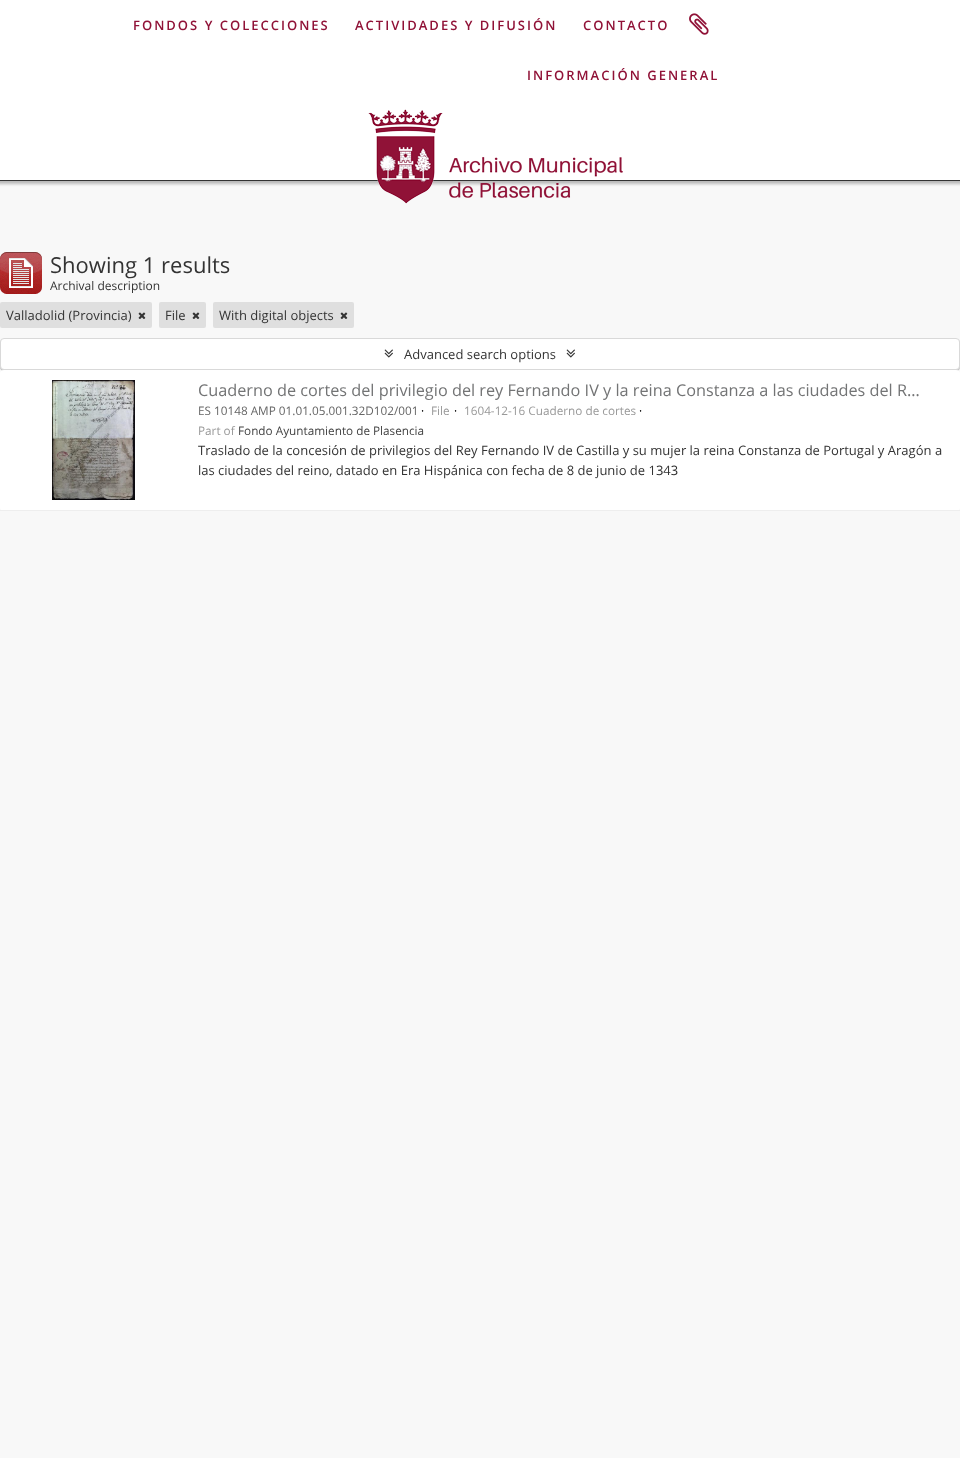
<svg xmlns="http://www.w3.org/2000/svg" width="960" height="1458">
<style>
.a{font:600 13px Open Sans;letter-spacing:2px;fill:#901237}
.b{font:22px Open Sans;fill:#333}
.c{font:12px Open Sans;fill:#333}
.d{font:13px Open Sans;fill:#333}
.e{font:16.25px Open Sans;fill:#737475}
.f{font:11.75px Open Sans;fill:#666}
.g{font:11.75px Open Sans;fill:#000}
.h{font:11.75px Open Sans;fill:#999}
.i{font:11.75px Open Sans;fill:#444}
</style>
<rect width="100%" height="100%" fill="#f8f8f8"/>
<path fill="#00000040" filter="blur(1.5px)" d="M-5 3h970v181H-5z"/>
<path fill="#fff" d="M0 0h960v180H0z"/>
<path fill="#333" d="M0 180h960v1H0z"/>
<image href="1.png" x="689" y="13" width="20" height="22"/>
<image href="2.png" x="368" y="109" width="255" height="95"/>
<image href="3.png" x="0" y="252" width="42" height="42"/>
<rect fill="#dfdfdf" y="302" width="152" height="26" rx="2"/>
<image href="4.png" x="138" y="312" width="8" height="7"/>
<rect fill="#dfdfdf" x="159" y="302" width="47" height="26" rx="2"/>
<image href="4.png" x="192" y="312" width="8" height="7"/>
<rect fill="#dfdfdf" x="213" y="302" width="141" height="26" rx="2"/>
<image href="4.png" x="340" y="312" width="8" height="7"/>
<rect fill="#00000033" filter="blur(0.5px)" y="339" width="960" height="32" rx="4"/>
<rect fill="#fff" stroke="#d9d9d9" x="0.5" y="338.5" width="959" height="31" rx="3.5"/>
<image href="5.png" x="384" y="349" width="9" height="9"/>
<image href="5.png" x="566" y="349" width="9" height="9"/>
<rect fill="#fff" y="370" width="960" height="141" rx="4"/>
<path fill="#eee" d="M0 510h960v1H0z"/>
<image href="6.png" x="52" y="380" width="83" height="120"/>
<text class="a" x="133" y="30">FONDOS Y COLECCIONES</text>
<text class="a" x="355" y="30">ACTIVIDADES Y DIFUSIÓN</text>
<text class="a" x="583" y="30">CONTACTO</text>
<text class="a" x="527" y="80">INFORMACIÓN GENERAL</text>
<text class="b" x="50" y="273">Showing 1 results</text>
<text class="c" x="50" y="290">Archival description</text>
<text class="d" x="6" y="320">Valladolid (Provincia)</text>
<text class="d" x="165" y="320">File</text>
<text class="d" x="219" y="320">With digital objects</text>
<text class="d" x="404" y="359">Advanced search options</text>
<text class="e" x="198" y="396">Cuaderno de cortes del privilegio del rey Fernando IV y la reina Constanza a las ciudades del R…</text>
<text class="f" x="198" y="415">ES 10148 AMP 01.01.05.001.32D102/001</text>
<text class="g" x="421" y="415">·</text>
<text class="h" x="431" y="415">File</text>
<text class="g" x="454" y="415">·</text>
<text class="h" x="464" y="415">1604-12-16 Cuaderno de cortes</text>
<text class="g" x="639" y="415">·</text>
<text class="h" x="198" y="435">Part of</text>
<text class="i" x="238" y="435">Fondo Ayuntamiento de Plasencia</text>
<text class="d" x="198" y="455">Traslado de la concesión de privilegios del Rey Fernando IV de Castilla y su mujer la reina Constanza de Portugal y Aragón a</text>
<text class="d" x="198" y="475">las ciudades del reino, datado en Era Hispánica con fecha de 8 de junio de 1343</text>
</svg>
